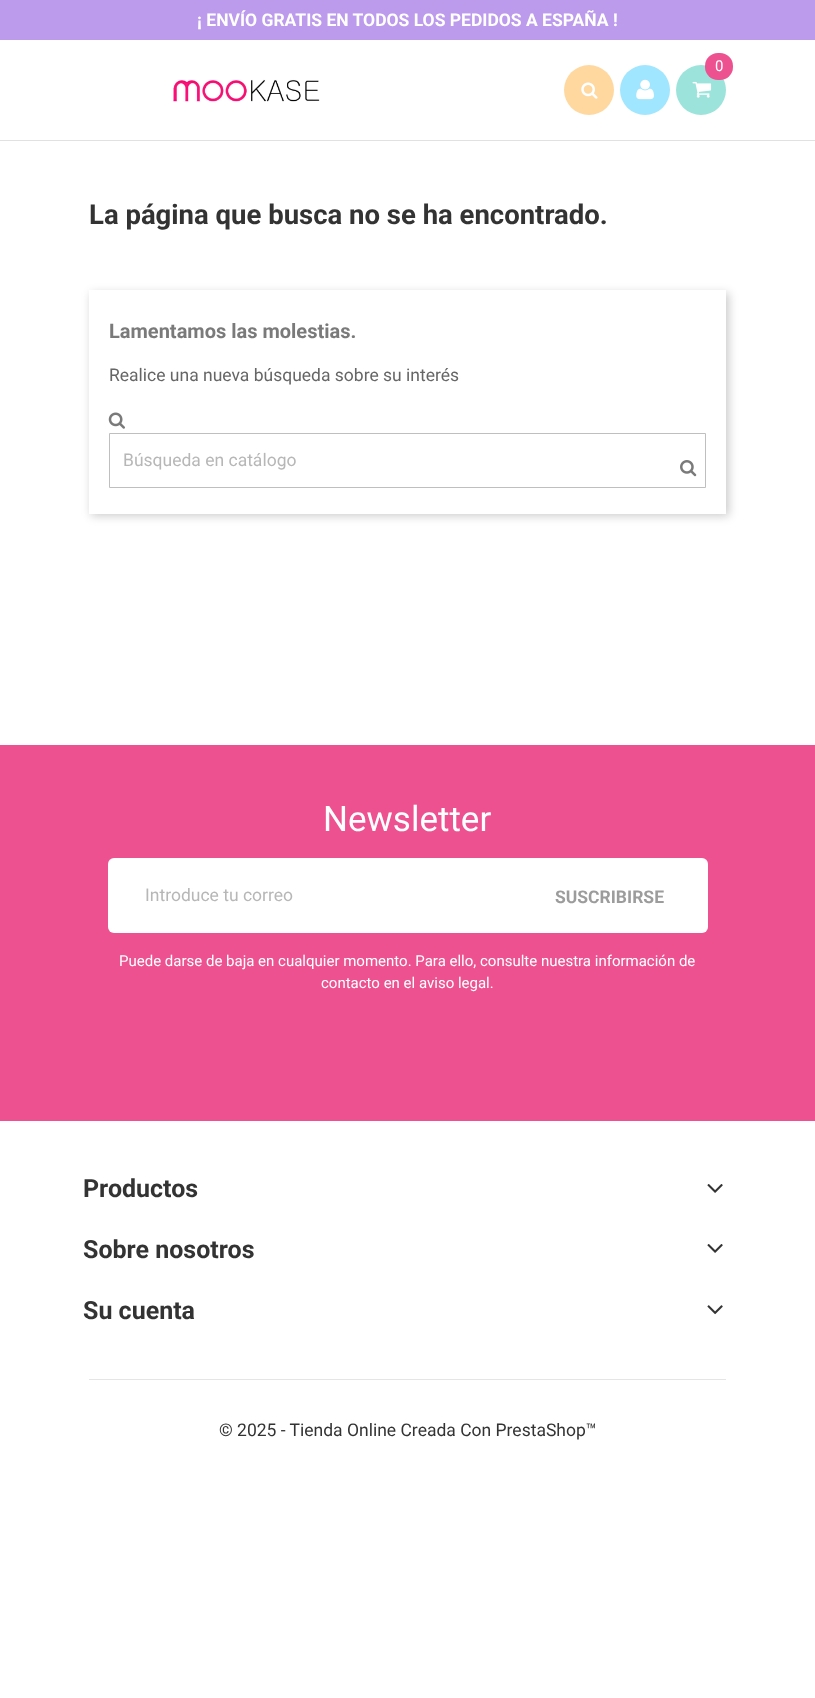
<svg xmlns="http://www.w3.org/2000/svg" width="815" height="1698">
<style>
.a{font:bold 17.5px Roboto;fill:#fff}
.b{font:15px Roboto;fill:#fff}
.c{font:bold 27.5px Roboto;fill:#333}
.d{font:bold 20px Roboto;fill:#7a7a7a}
.e{font:17.5px Roboto;fill:#666}
.f{font:17.5px Roboto;fill:#b7b7b7}
.g{font:35px Roboto;fill:#fff}
.h{font:bold 17.5px Roboto;fill:#9c9c9c}
.i{font:bold 25px Roboto;fill:#333}
.j{font:17.5px Roboto;fill:#333}
</style>
<rect width="100%" height="100%" fill="#fff"/>
<path fill="#bc9bec" d="M0 0h815v40H0z"/>
<path fill="#e1e1e1" d="M0 140h815v1H0z"/>
<image href="1.png" x="173" y="79" width="147" height="23"/>
<circle fill="#ffd8a0" cx="589" cy="90" r="25"/>
<image href="2.png" x="581" y="82" width="17" height="17"/>
<circle fill="#a0e6ff" cx="645" cy="90" r="25"/>
<image href="3.png" x="636" y="79" width="18" height="21"/>
<circle fill="#9ce4db" cx="701" cy="90" r="25"/>
<rect fill="#ed5190" x="705" y="53" width="28" height="27" rx="13"/>
<image href="4.png" x="692" y="81" width="20" height="17"/>
<path fill="#00000033" filter="blur(5px)" d="M91 293h638v223H91z"/>
<path fill="#fff" d="M89 290h637v224H89z"/>
<image href="5.png" x="108" y="412" width="17" height="17"/>
<path fill="none" stroke="#bfbfbf" d="M109.5 433.5h596v54H109.5z"/>
<image href="6.png" x="680" y="460" width="17" height="17"/>
<path fill="#ed5190" d="M0 745h815v376H0z"/>
<rect fill="#fff" x="108" y="858" width="600" height="75" rx="6"/>
<image href="7.png" x="707" y="1184" width="16" height="9"/>
<image href="7.png" x="707" y="1244" width="16" height="9"/>
<image href="8.png" x="707" y="1305" width="16" height="10"/>
<path fill="#e5e5e5" d="M89 1379h637v1H89z"/>
<text class="a" x="197" y="26">¡ ENVÍO GRATIS EN TODOS LOS PEDIDOS A ESPAÑA !</text>
<text class="b" x="715" y="71">0</text>
<text class="c" x="89" y="224">La página que busca no se ha encontrado.</text>
<text class="d" x="109" y="338">Lamentamos las molestias.</text>
<text class="e" x="109" y="381">Realice una nueva búsqueda sobre su interés</text>
<text class="f" x="123" y="466">Búsqueda en catálogo</text>
<text class="g" x="323" y="831">Newsletter</text>
<text class="f" x="145" y="901">Introduce tu correo</text>
<text class="h" x="555" y="903">SUSCRIBIRSE</text>
<text class="b" x="119" y="966">Puede darse de baja en cualquier momento. Para ello, consulte nuestra información de</text>
<text class="b" x="321" y="988">contacto en el aviso legal.</text>
<text class="i" x="83" y="1197">Productos</text>
<text class="i" x="83" y="1258">Sobre nosotros</text>
<text class="i" x="83" y="1319">Su cuenta</text>
<text class="j" x="219" y="1436">© 2025 - Tienda Online Creada Con PrestaShop™</text>
</svg>
